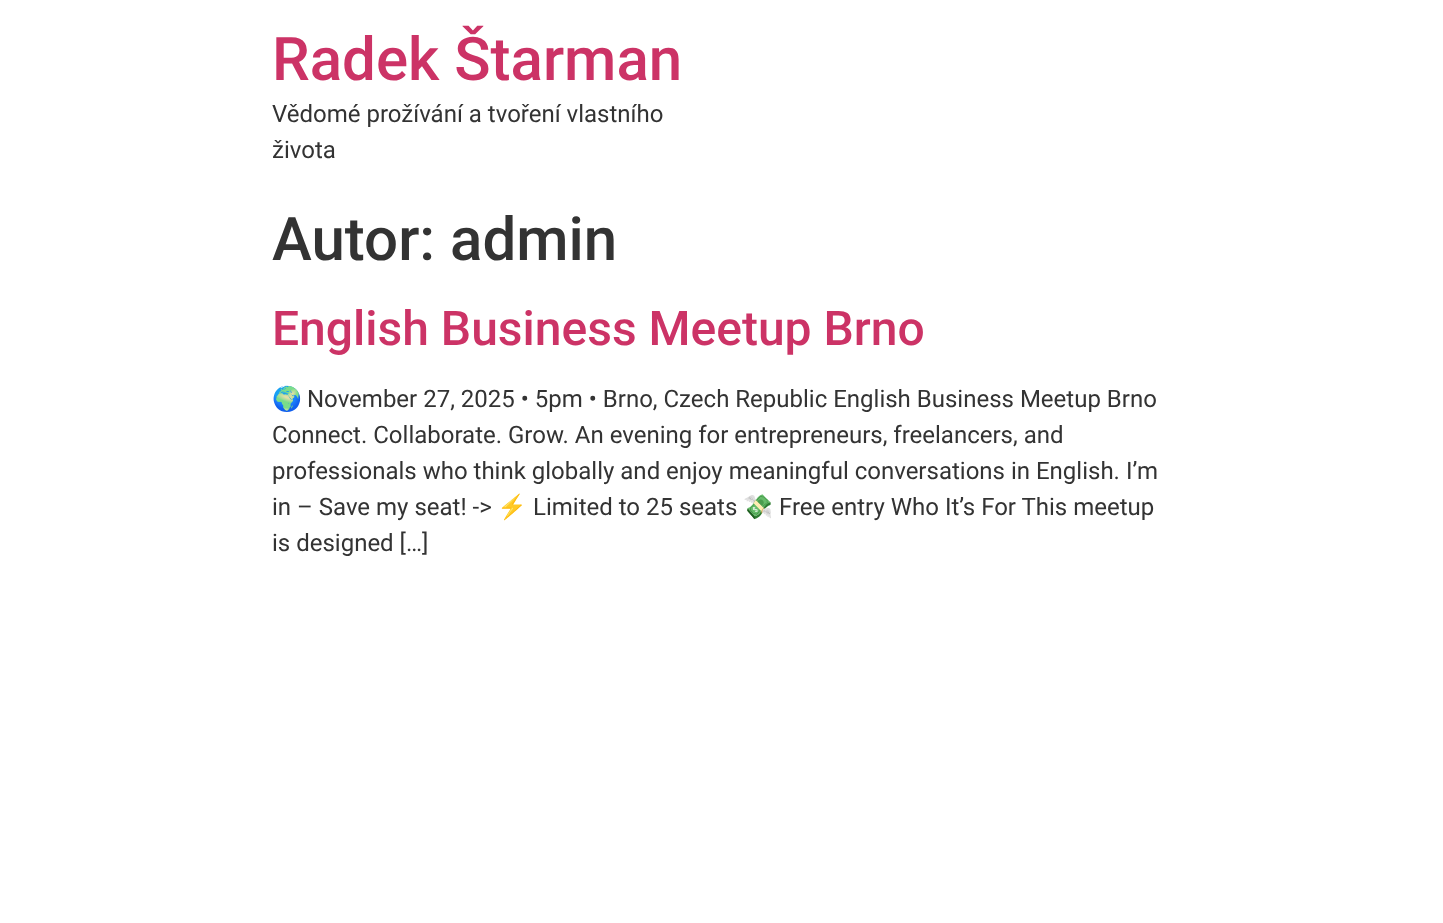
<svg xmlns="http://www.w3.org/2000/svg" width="1443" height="923">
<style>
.a{font:500 60px Roboto;fill:#c36}
.b{font:24px Roboto;fill:#333}
.c{font:500 60px Roboto;fill:#333}
.d{font:500 48px Roboto;fill:#c36}
.e{font:24px Noto Color Emoji;fill:#333}
</style>
<rect width="100%" height="100%" fill="#fff"/>
<text class="a" x="272" y="80">Radek Štarman</text>
<text class="b" x="272" y="122">Vědomé prožívání a tvoření vlastního</text>
<text class="b" x="272" y="158">života</text>
<text class="c" x="272" y="260">Autor: admin</text>
<text class="d" x="272" y="345">English Business Meetup Brno</text>
<text class="e" x="272" y="407">🌍</text>
<text class="b" x="307" y="407">November 27, 2025 • 5pm • Brno, Czech Republic English Business Meetup Brno</text>
<text class="b" x="272" y="443">Connect. Collaborate. Grow. An evening for entrepreneurs, freelancers, and</text>
<text class="b" x="272" y="479">professionals who think globally and enjoy meaningful conversations in English. I’m</text>
<text class="b" x="272" y="515">in – Save my seat! -&gt;</text>
<text class="e" x="497" y="515">⚡</text>
<text class="b" x="533" y="515">Limited to 25 seats</text>
<text class="e" x="743" y="515">💸</text>
<text class="b" x="779" y="515">Free entry Who It’s For This meetup</text>
<text class="b" x="272" y="551">is designed […]</text>
</svg>
